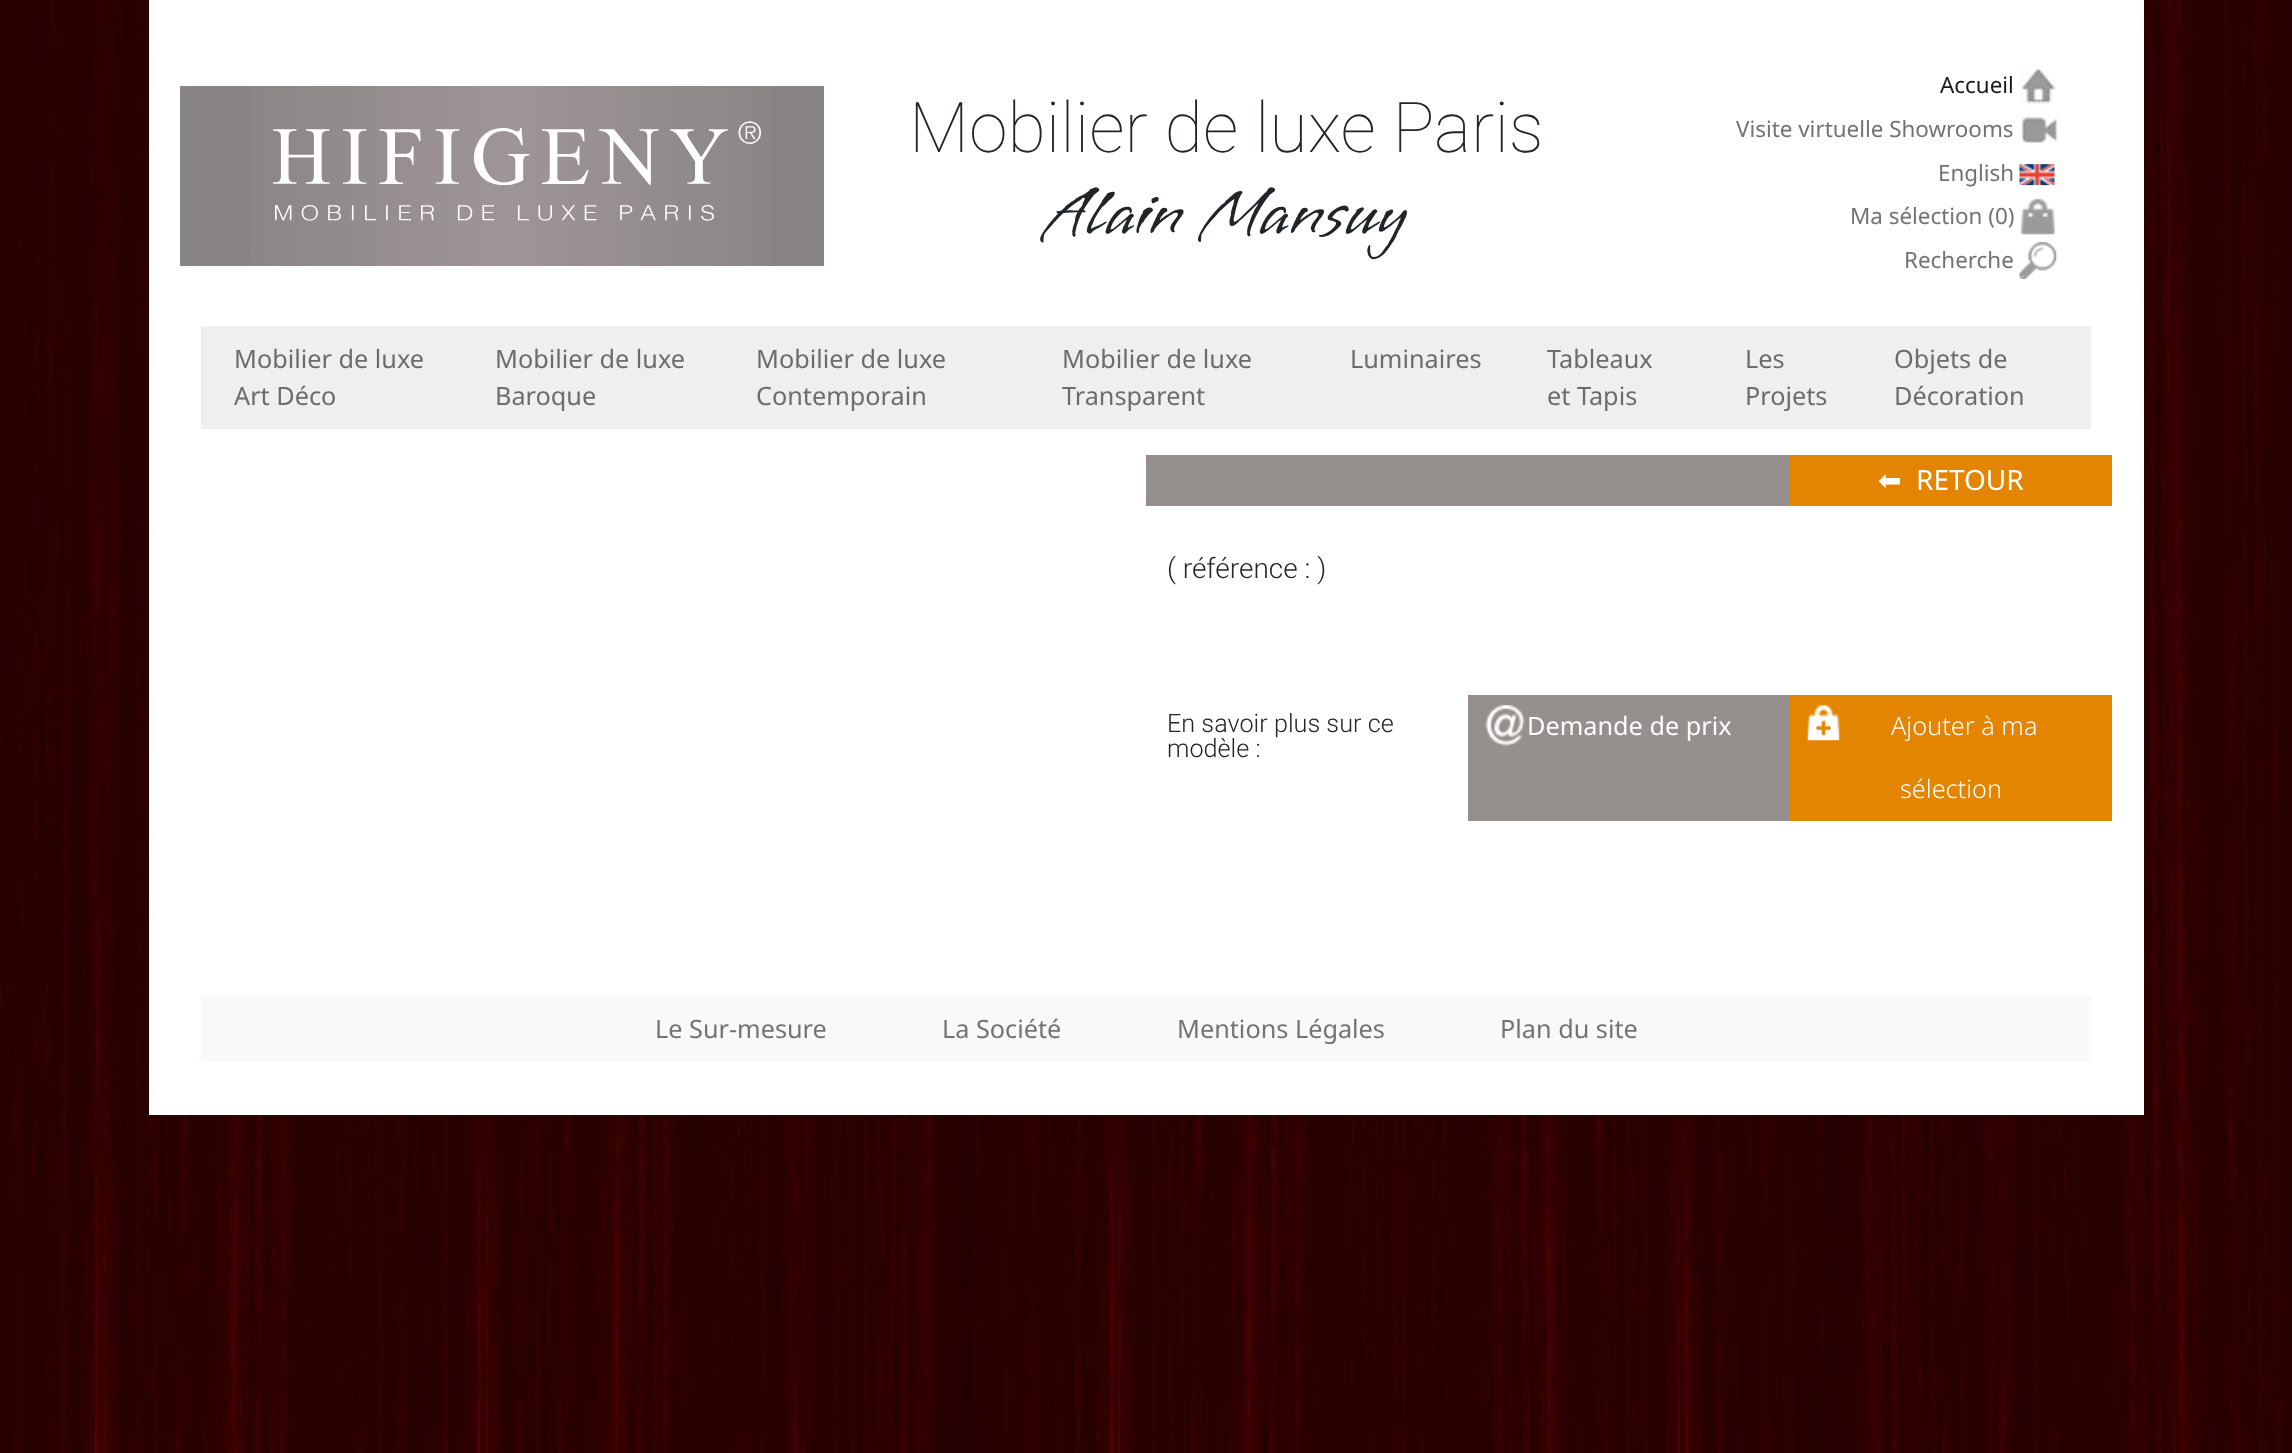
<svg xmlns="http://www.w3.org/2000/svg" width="2292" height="1453">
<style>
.a{font:100 70px Roboto;fill:#212529}
.b{font:70px Vujahday Script;fill:#212529}
.c{font:22.4px Noto Sans;fill:#1a1a1a}
.d{font:22.4px Noto Sans;fill:#737373}
.e{font:25.25px Noto Sans;fill:#6c6c6c}
.f{font:28px DejaVu Sans;fill:#fff}
.g{font:28px Noto Sans;fill:#fff}
.h{font:300 28px Roboto;fill:#212529}
.i{font:300 25.25px Roboto;fill:#212529}
.j{font:25.25px Noto Sans;fill:#fff}
.k{font:300 25.25px Noto Sans;fill:#fff}
.l{font:25.25px Noto Sans;fill:#737373}
</style>
<rect width="100%" height="100%" fill="#fff"/>
<image href="1.png" x="0" y="1115" width="2292" height="338"/>
<image href="2.png" x="0" y="0" width="2292" height="1115"/>
<path fill="#fff" d="M149 0h1995v1115H149z"/>
<path fill="#878283" d="M180 86h644v180H180z"/>
<image href="3.png" x="251" y="86" width="519" height="180"/>
<image href="4.png" x="2019" y="66" width="38" height="39"/>
<image href="5.png" x="2020" y="114" width="40" height="30"/>
<image href="6.png" x="2019" y="164" width="36" height="22"/>
<image href="7.png" x="2020" y="198" width="36" height="37"/>
<image href="8.png" x="2019" y="242" width="38" height="37"/>
<path fill="#efefef" d="M201 326h1890v103H201z"/>
<path fill="#95908e" d="M1146 455h644v51H1146z"/>
<path fill="#e38501" d="M1790 455h322v51H1790z"/>
<path fill="#95908e" d="M1468 695h322v126H1468z"/>
<image href="9.png" x="1485" y="705" width="40" height="41"/>
<path fill="#e38501" d="M1790 695h322v126H1790z"/>
<image href="10.png" x="1807" y="705" width="33" height="36"/>
<path fill="#f8f9fa" d="M201 996h1890v66H201z"/>
<text class="a" x="909" y="152">Mobilier de luxe Paris</text>
<text class="b" x="1046" y="233">Alain Mansuy</text>
<text class="c" x="1940" y="93">Accueil</text>
<text class="d" x="1736" y="137">Visite virtuelle Showrooms</text>
<text class="d" x="1938" y="181">English</text>
<text class="d" x="1850" y="224">Ma sélection (0)</text>
<text class="d" x="1904" y="268">Recherche</text>
<text class="e" x="234" y="368">Mobilier de luxe</text>
<text class="e" x="234" y="405">Art Déco</text>
<text class="e" x="495" y="368">Mobilier de luxe</text>
<text class="e" x="495" y="405">Baroque</text>
<text class="e" x="756" y="368">Mobilier de luxe</text>
<text class="e" x="756" y="405">Contemporain</text>
<text class="e" x="1062" y="368">Mobilier de luxe</text>
<text class="e" x="1062" y="405">Transparent</text>
<text class="e" x="1350" y="368">Luminaires</text>
<text class="e" x="1547" y="368">Tableaux</text>
<text class="e" x="1547" y="405">et Tapis</text>
<text class="e" x="1745" y="368">Les</text>
<text class="e" x="1745" y="405">Projets</text>
<text class="e" x="1894" y="368">Objets de</text>
<text class="e" x="1894" y="405">Décoration</text>
<text class="f" x="1878" y="490">⬅︎</text>
<text class="g" x="1916" y="490">RETOUR</text>
<text class="h" x="1167" y="578">( référence : )</text>
<text class="i" x="1167" y="732">En savoir plus sur ce</text>
<text class="i" x="1167" y="757">modèle :</text>
<text class="j" x="1527" y="735">Demande de prix</text>
<text class="k" x="1891" y="735">Ajouter à ma</text>
<text class="k" x="1900" y="798">sélection</text>
<text class="l" x="655" y="1038">Le Sur-mesure</text>
<text class="l" x="942" y="1038">La Société</text>
<text class="l" x="1177" y="1038">Mentions Légales</text>
<text class="l" x="1500" y="1038">Plan du site</text>
</svg>
